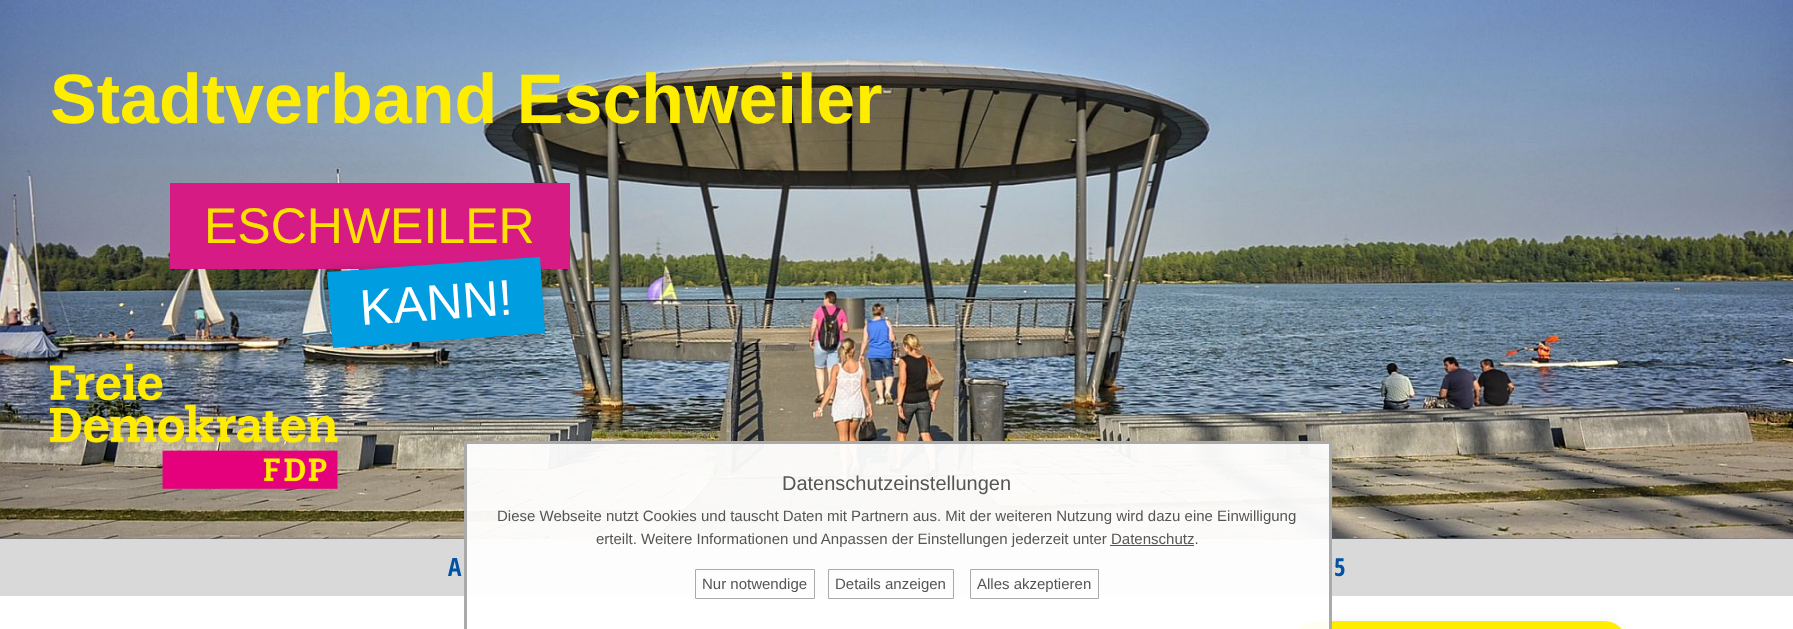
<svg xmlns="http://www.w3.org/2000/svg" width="1793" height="629">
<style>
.a{font:bold 70px Liberation Sans;fill:#ffed00}
.b{font:50px Liberation Sans;fill:#fbe100}
.c{font:50px Liberation Sans;fill:#fff}
.d{font:20px Liberation Sans;fill:#555}
.e{font:15px Liberation Sans;fill:#555}
.f{font:bold 25px Open Sans Condensed;fill:#0053a4}
</style>
<rect width="100%" height="100%" fill="#3b4c73"/>
<path fill="#aaa" filter="blur(3px)" d="M0 539h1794v57H0z"/>
<image href="1.png" x="0" y="0" width="1793" height="539"/>
<path fill="#d61c84" d="M170 183h400v86H170z"/>
<path fill="#00000033" filter="blur(5px)" d="M330 270h213v76H330z"/>
<path fill="#009ee0" d="M327 272l213-15l5 76l-212 15z"/>
<image href="2.png" x="50" y="363" width="288" height="126"/>
<path fill="#d9d9d9" d="M0 539h1793v57H0z"/>
<path fill="#fff" d="M0 596h1793v33H0z"/>
<rect fill="#0000001a" filter="blur(7.5px)" x="1298" y="626" width="325" height="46" rx="20"/>
<rect fill="#ffed00" x="1298" y="621" width="325" height="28" rx="20"/>
<path fill="#fffffff2" d="M467 444h862v185H467z"/>
<path fill="#aaa" d="M464 441h867v3H464z"/>
<path fill="#aaa" d="M1329 441h3v188H1329z"/>
<path fill="#aaa" d="M464 441h3v188H464z"/>
<path fill="#555" d="M1110 545h84v1H1110z"/>
<path fill="none" stroke="#aaa" d="M695.5 569.5h119v29H695.5z"/>
<path fill="none" stroke="#aaa" d="M828.5 569.5h125v29H828.5z"/>
<path fill="none" stroke="#aaa" d="M970.5 569.5h128v29H970.5z"/>
<text class="a" x="50" y="123">Stadtverband Eschweiler</text>
<text class="b" x="204" y="243">ESCHWEILER</text>
<text class="c" x="361" y="325" transform="rotate(-4 361 325)">KANN!</text>
<text class="d" x="782" y="490">Datenschutzeinstellungen</text>
<text class="e" x="497" y="521">Diese Webseite nutzt Cookies und tauscht Daten mit Partnern aus. Mit der weiteren Nutzung wird dazu eine Einwilligung</text>
<text class="e" x="596" y="544">erteilt. Weitere Informationen und Anpassen der Einstellungen jederzeit unter Datenschutz.</text>
<text class="e" x="702" y="589">Nur notwendige</text>
<text class="e" x="835" y="589">Details anzeigen</text>
<text class="e" x="977" y="589">Alles akzeptieren</text>
<text class="f" x="448" y="576">A</text>
<text class="f" x="1334" y="576">5</text>
</svg>
